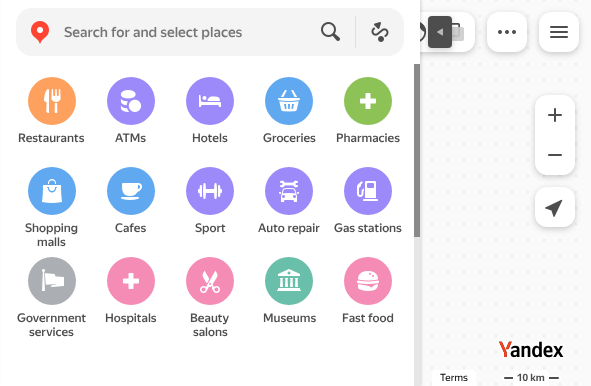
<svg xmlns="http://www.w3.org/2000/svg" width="591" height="386">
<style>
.a{font:500 14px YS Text;fill:#757575}
.b{font:500 12px YS Text;fill:#4d4d4d}
.c{font:10px YS Text;fill:#000}
.d{font:bold 10px YS Text;fill:#4d4d4d}
</style>
<rect width="100%" height="100%" fill="#fff"/>
<image href="1.png" x="420" y="0" width="171" height="386"/>
<rect fill="#00000033" filter="blur(3px)" x="395" y="14" width="80" height="40" rx="12"/>
<path fill="#fff" d="M420 12h15v40H420z"/>
<image href="5.png" x="420" y="22" width="7" height="20"/>
<path fill="#0000001a" filter="blur(1px)" d="M2 0h420v386H2z"/>
<path fill="#fff" d="M435 12h28c6.5 0 12 5.5 12 12v16c0 6.5-5.5 12-12 12h-28z"/>
<image href="6.png" x="452" y="23" width="12" height="18"/>
<rect fill="#00000033" filter="blur(3px)" x="428" y="18" width="24" height="32" rx="4"/>
<path fill="#fff" d="M1 0h419v386H1z"/>
<rect fill="#f4f4f4" x="16" y="8" width="388" height="48" rx="16"/>
<image href="2.png" x="31" y="21" width="18" height="23"/>
<image href="3.png" x="321" y="22" width="19" height="19"/>
<path fill="#e0e0e0" d="M355 16h1v32H355z"/>
<image href="4.png" x="371" y="22" width="18" height="20"/>
<rect fill="#00000033" filter="blur(3px)" x="487" y="14" width="40" height="40" rx="12"/>
<rect fill="#fff" x="487" y="12" width="40" height="40" rx="12"/>
<image href="7.png" x="498" y="30" width="18" height="4"/>
<rect fill="#00000033" filter="blur(3px)" x="539" y="14" width="40" height="40" rx="12"/>
<rect fill="#fff" x="539" y="12" width="40" height="40" rx="12"/>
<image href="8.png" x="550" y="26" width="18" height="12"/>
<rect fill="#00000033" filter="blur(3px)" x="535" y="97" width="40" height="80" rx="12"/>
<path fill="#fff" d="M547 95h16c6.5 0 12 5.5 12 12v28h-40v-28c0-6.5 5.5-12 12-12z"/>
<image href="9.png" x="548" y="108" width="14" height="14"/>
<path fill="#fff" d="M535 135h40v28c0 6.5-5.5 12-12 12h-16c-6.5 0-12-5.5-12-12z"/>
<image href="10.png" x="548" y="154" width="14" height="2"/>
<rect fill="#00000033" filter="blur(3px)" x="535" y="189" width="40" height="40" rx="12"/>
<rect fill="#fff" x="535" y="187" width="40" height="40" rx="12"/>
<image href="11.png" x="545" y="199" width="18" height="18"/>
<rect fill="#4d4d4d" x="428" y="16" width="24" height="32" rx="4"/>
<image href="12.png" x="437" y="28" width="6" height="8"/>
<circle fill="#ffa15e" cx="52" cy="101" r="24"/>
<image href="13.png" x="44" y="89" width="17" height="24"/>
<circle fill="#9c89fa" cx="131" cy="101" r="24"/>
<image href="14.png" x="120" y="90" width="22" height="22"/>
<circle fill="#9c89fa" cx="210" cy="101" r="24"/>
<image href="15.png" x="199" y="95" width="22" height="12"/>
<circle fill="#60a8f0" cx="289" cy="101" r="24"/>
<image href="16.png" x="278" y="90" width="22" height="22"/>
<circle fill="#8dc257" cx="368" cy="101" r="24"/>
<image href="17.png" x="360" y="93" width="16" height="16"/>
<circle fill="#60a8f0" cx="52" cy="191" r="24"/>
<image href="18.png" x="42" y="179" width="20" height="24"/>
<circle fill="#60a8f0" cx="131" cy="191" r="24"/>
<image href="19.png" x="121" y="183" width="21" height="17"/>
<circle fill="#9c89fa" cx="210" cy="191" r="24"/>
<image href="20.png" x="198" y="183" width="24" height="16"/>
<circle fill="#9c89fa" cx="289" cy="191" r="24"/>
<image href="21.png" x="279" y="180" width="20" height="22"/>
<circle fill="#9c89fa" cx="368" cy="191" r="24"/>
<image href="22.png" x="357" y="181" width="21" height="20"/>
<circle fill="#abaeb2" cx="52" cy="281" r="24"/>
<image href="23.png" x="42" y="269" width="22" height="22"/>
<circle fill="#f58cb6" cx="131" cy="281" r="24"/>
<image href="24.png" x="123" y="273" width="16" height="16"/>
<circle fill="#f58cb6" cx="210" cy="281" r="24"/>
<image href="25.png" x="200" y="270" width="20" height="23"/>
<circle fill="#69bfaa" cx="289" cy="281" r="24"/>
<image href="26.png" x="277" y="269" width="24" height="22"/>
<circle fill="#f58cb6" cx="368" cy="281" r="24"/>
<image href="27.png" x="357" y="271" width="22" height="20"/>
<path fill="#8a8a8a" d="M414 64h6v173H414z"/>
<path fill="#e6e6e6" d="M414 237h6v149H414z"/>
<image href="28.png" x="499" y="341" width="65" height="17"/>
<path fill="#fff" d="M436 370h36c2 0 4 2 4 4v12h-44v-12c0-2 2-4 4-4z"/>
<rect fill="#fdfdfd" x="502" y="375" width="59" height="6" rx="3"/>
<rect fill="#4d4d4d" x="504" y="377" width="55" height="2" rx="1"/>
<path fill="#fff" d="M517 370h28c2 0 4 2 4 4v12h-36v-12c0-2 2-4 4-4z"/>
<text class="a" x="64" y="37">Search for and select places</text>
<text class="b" x="18" y="142">Restaurants</text>
<text class="b" x="115" y="142">ATMs</text>
<text class="b" x="192" y="142">Hotels</text>
<text class="b" x="263" y="142">Groceries</text>
<text class="b" x="336" y="142">Pharmacies</text>
<text class="b" x="25" y="232">Shopping</text>
<text class="b" x="37" y="246">malls</text>
<text class="b" x="115" y="232">Cafes</text>
<text class="b" x="195" y="232">Sport</text>
<text class="b" x="258" y="232">Auto repair</text>
<text class="b" x="334" y="232">Gas stations</text>
<text class="b" x="17" y="322">Government</text>
<text class="b" x="29" y="336">services</text>
<text class="b" x="105" y="322">Hospitals</text>
<text class="b" x="190" y="322">Beauty</text>
<text class="b" x="193" y="336">salons</text>
<text class="b" x="263" y="322">Museums</text>
<text class="b" x="342" y="322">Fast food</text>
<text class="c" x="440" y="381">Terms</text>
<text class="d" x="517" y="381">10 km</text>
</svg>
